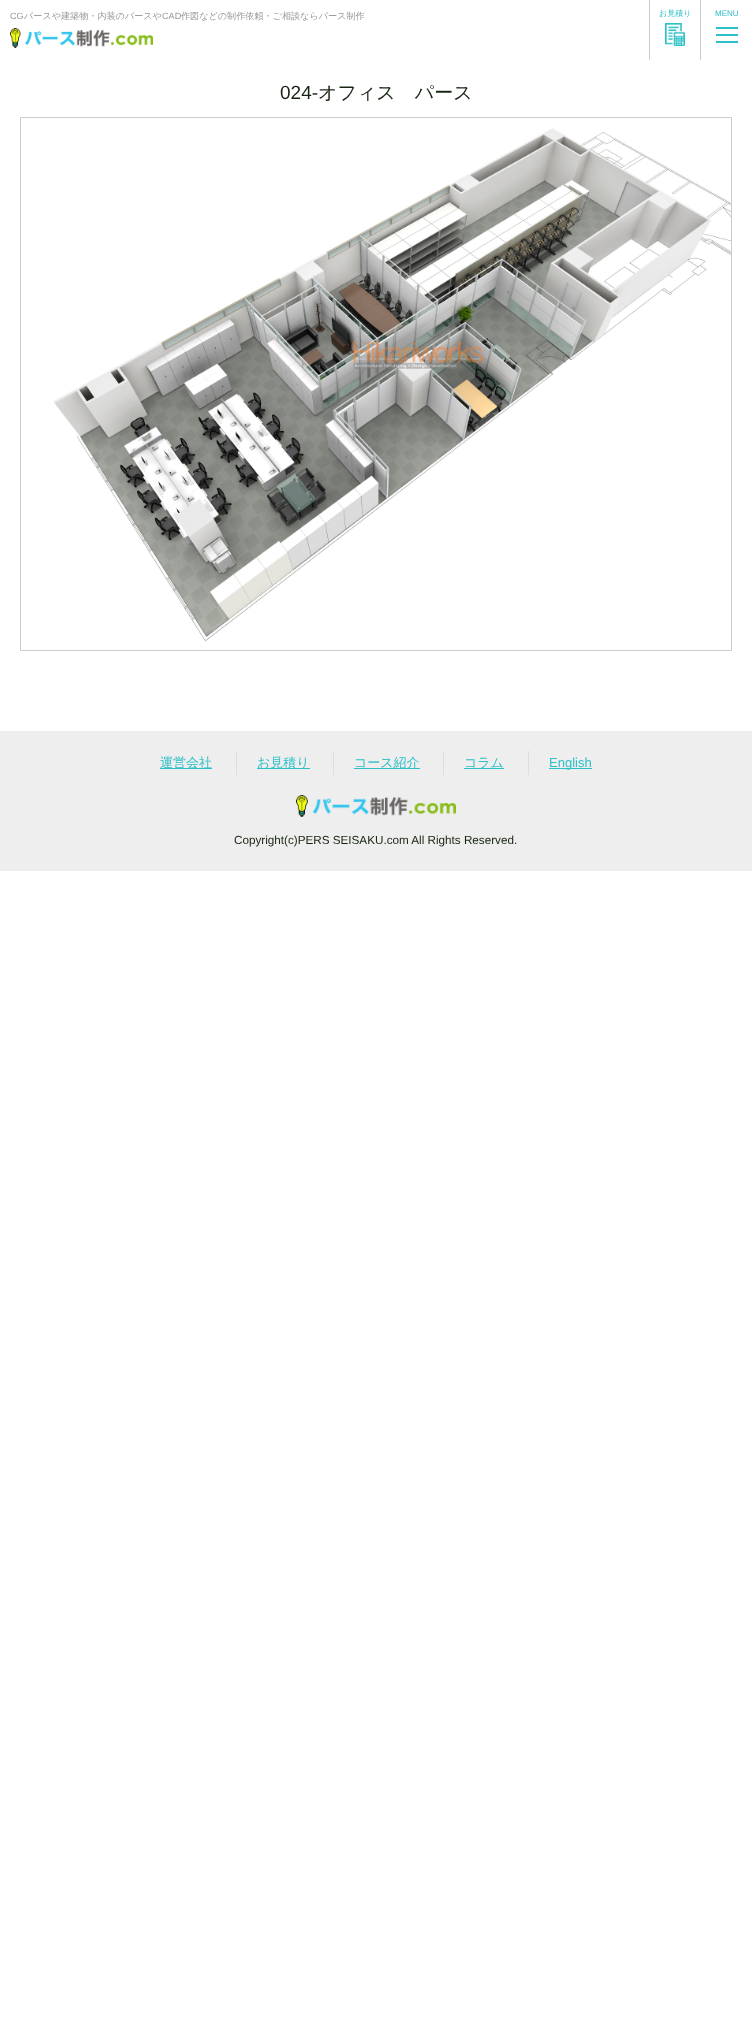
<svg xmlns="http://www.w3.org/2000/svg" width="752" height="2034">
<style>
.a{font:9.1px Liberation Sans;fill:#999}
.b{font:500 9.1px WenQuanYi Zen Hei;fill:#999}
.c{font:500 8px WenQuanYi Zen Hei;fill:#2cc0c8}
.d{font:8px Liberation Sans;fill:#2cc0c8}
.e{font:19px Liberation Sans;fill:#182413}
.f{font:500 19px WenQuanYi Zen Hei;fill:#182413}
.g{font:500 13px WenQuanYi Zen Hei;fill:#2cc0c8}
.h{font:13px Liberation Sans;fill:#2cc0c8}
.i{font:11.7px Liberation Sans;fill:#182413}
</style>
<rect width="100%" height="100%" fill="#fff"/>
<image href="1.png" x="10" y="28" width="143" height="20"/>
<path fill="#ccc" d="M700 0h1v60H700z"/>
<path fill="#ccc" d="M649 0h1v60H649z"/>
<image href="2.png" x="665" y="23" width="20" height="23"/>
<path fill="#2cc0c8" d="M716 27h22v2H716z"/>
<path fill="#2cc0c8" d="M716 34h22v2H716z"/>
<path fill="#2cc0c8" d="M716 41h22v2H716z"/>
<path fill="none" stroke="#ccc" d="M20.5 117.5h711v533H20.5z"/>
<image href="3.png" x="53" y="128" width="678" height="514"/>
<path fill="#eee" d="M0 731h752v140H0z"/>
<path fill="#2cc0c8" d="M160 768h52v1H160z"/>
<path fill="#ddd" d="M236 751h1v24H236z"/>
<path fill="#2cc0c8" d="M257 768h53v1H257z"/>
<path fill="#ddd" d="M333 751h1v24H333z"/>
<path fill="#2cc0c8" d="M354 768h66v1H354z"/>
<path fill="#ddd" d="M443 751h1v24H443z"/>
<path fill="#2cc0c8" d="M464 768h40v1H464z"/>
<path fill="#ddd" d="M528 751h1v24H528z"/>
<path fill="#2cc0c8" d="M549 768h43v1H549z"/>
<image href="4.png" x="296" y="795" width="160" height="22"/>
<text class="a" x="10" y="19">CG</text>
<text class="b" x="24" y="19">パースや建築物・内装のパースや</text>
<text class="a" x="162" y="19">CAD</text>
<text class="b" x="181" y="19">作図などの制作依頼・ご相談ならパース制作</text>
<text class="c" x="659" y="16">お見積り</text>
<text class="d" x="715" y="16">MENU</text>
<text class="e" x="280" y="99">024-</text>
<text class="f" x="318" y="99">オフィス　パース</text>
<text class="g" x="160" y="767">運営会社</text>
<text class="g" x="257" y="767">お見積り</text>
<text class="g" x="354" y="767">コース紹介</text>
<text class="g" x="464" y="767">コラム</text>
<text class="h" x="549" y="767">English</text>
<text class="i" x="234" y="844">Copyright(c)PERS SEISAKU.com All Rights Reserved.</text>
</svg>
